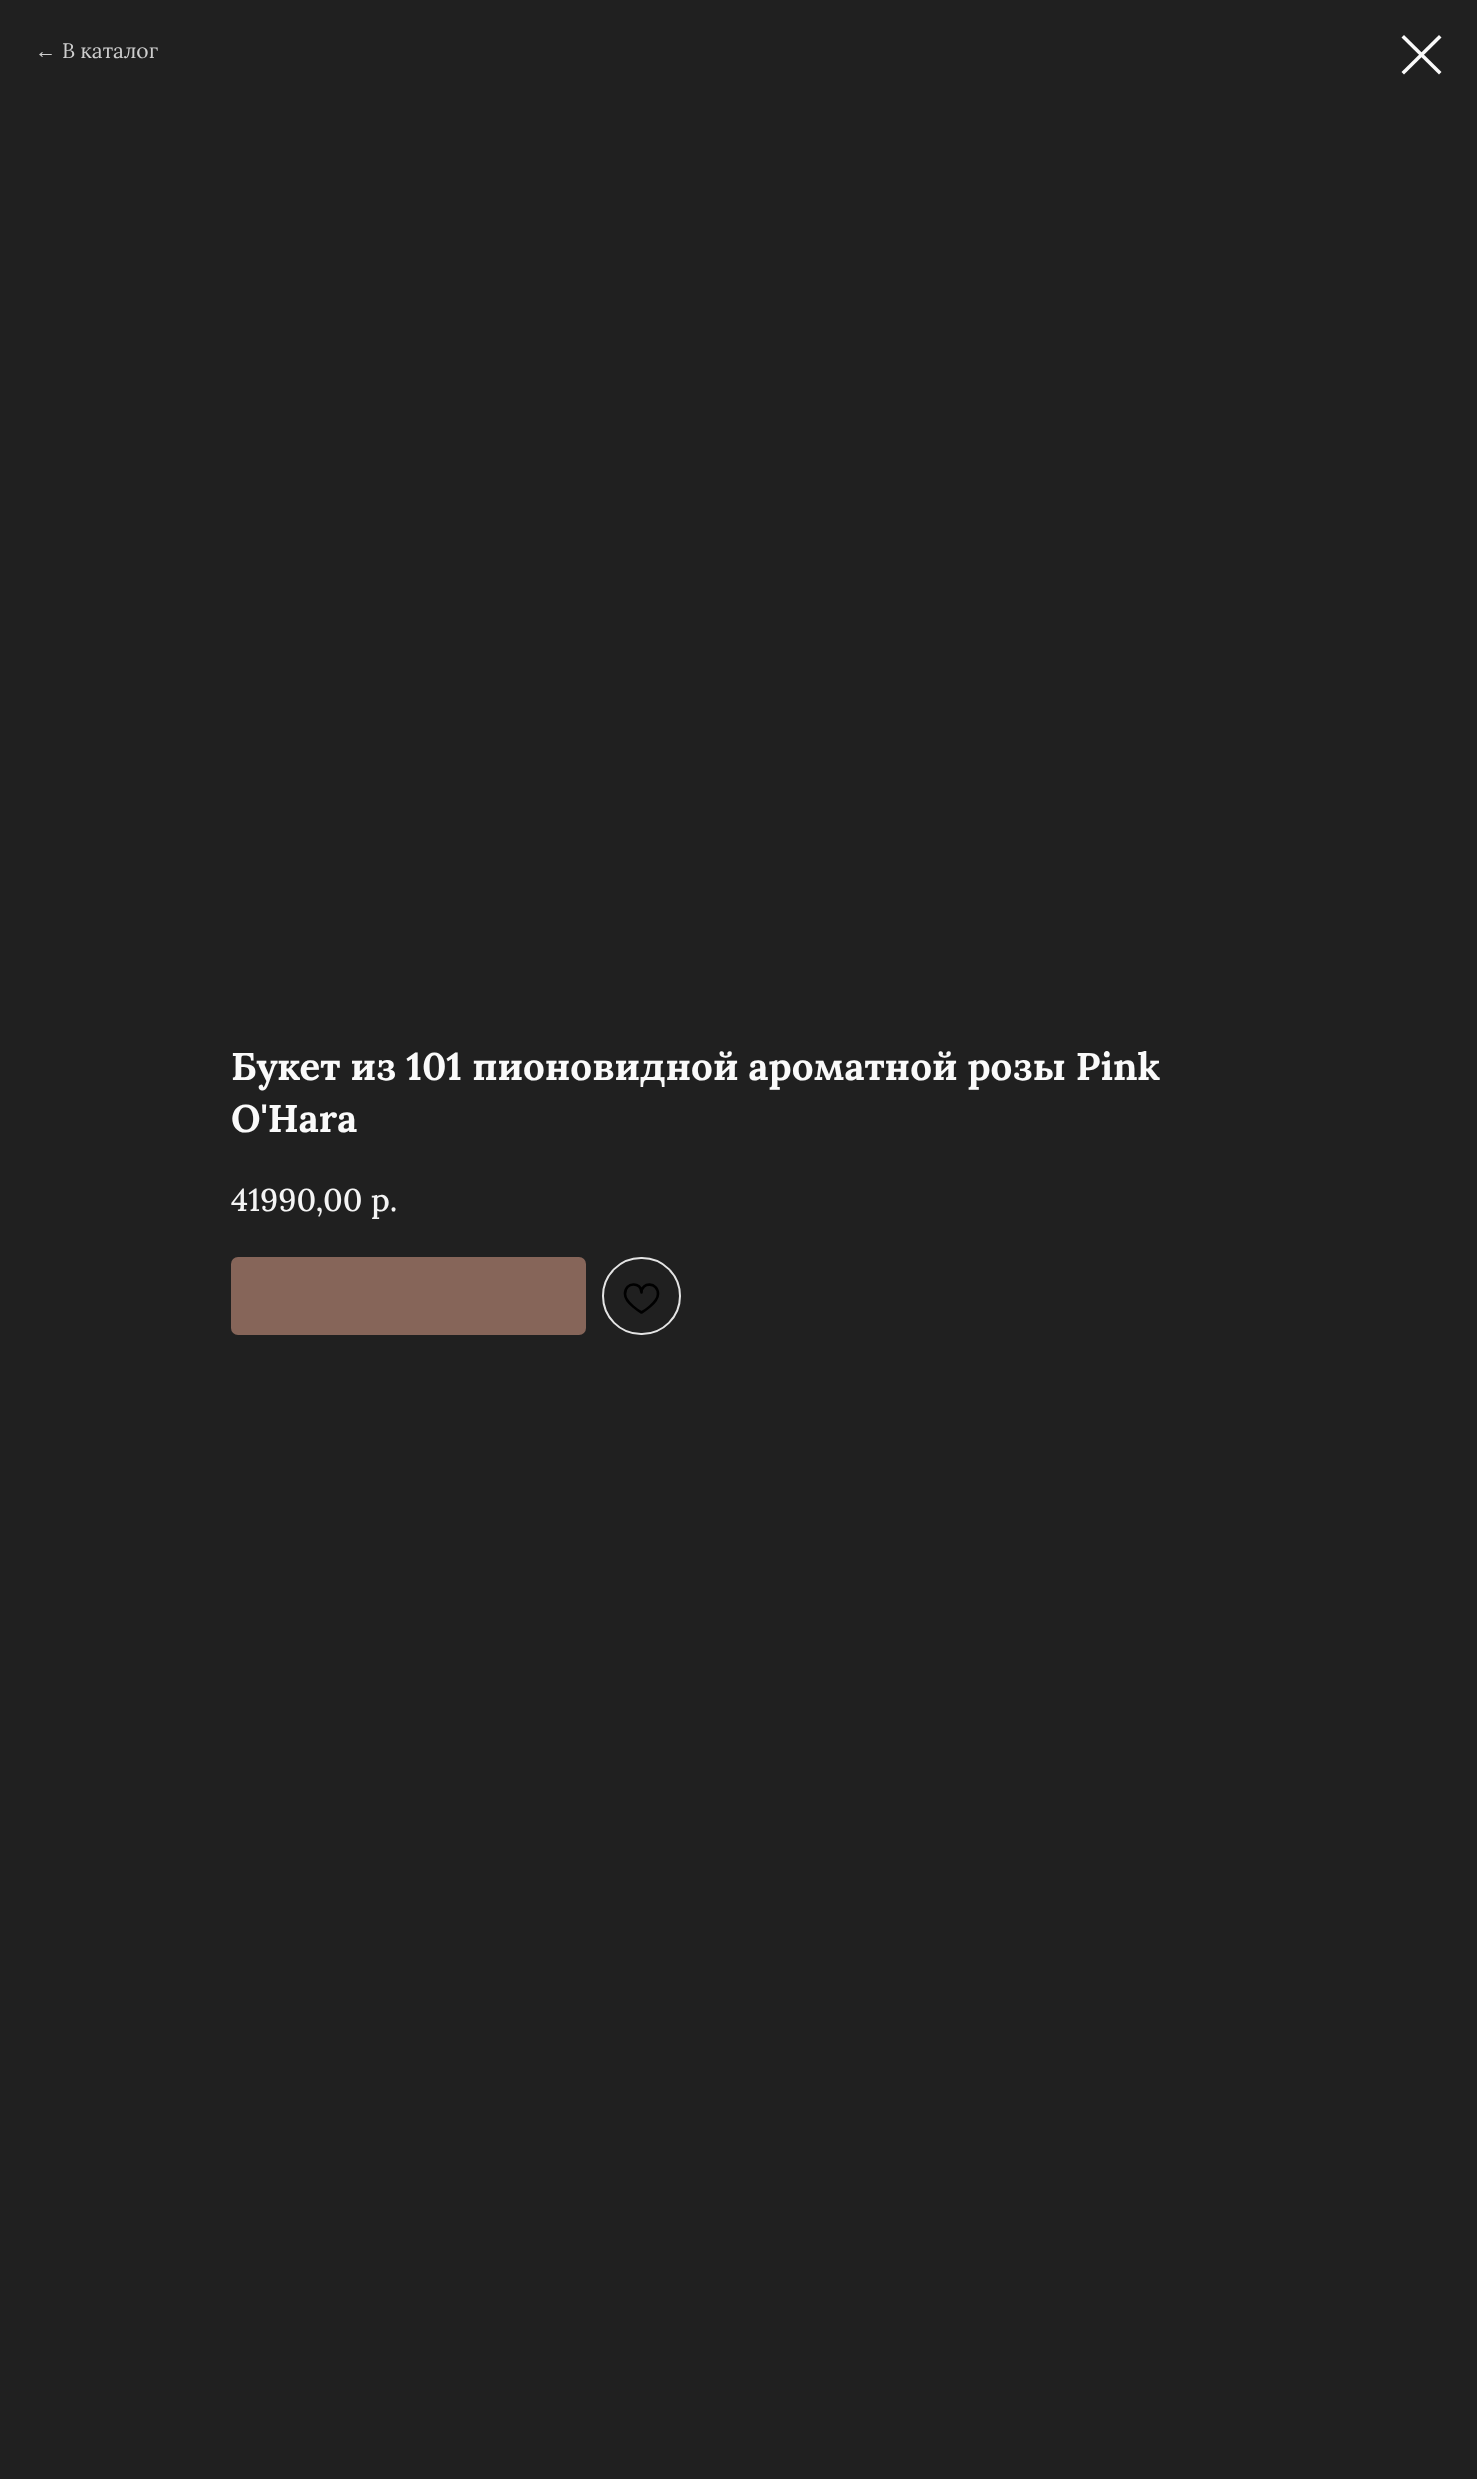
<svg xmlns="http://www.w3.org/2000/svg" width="1477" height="2479">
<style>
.a{font:21px Liberation Sans;fill:#cecece}
.b{font:21px Lora;fill:#cecece}
.c{font:bold 38.5px Lora;fill:#fafafa}
.d{font:500 31.5px Lora;fill:#f4f4f4}
</style>
<rect width="100%" height="100%" fill="#202020"/>
<path fill="#fafafa" fill-rule="evenodd" d="M1401.5 37.5l2.5-2.5l37.5 37l-2.5 2.5z"/>
<path fill="#fafafa" fill-rule="evenodd" d="M1439 35l2.5 2.5l-37.5 37l-2.5-2.5z"/>
<rect fill="#866559" x="231" y="1257" width="355" height="78" rx="7"/>
<rect fill="none" stroke="#e4e4e4" stroke-width="2" x="603" y="1258" width="77" height="76" rx="38"/>
<path fill="none" stroke="#000" stroke-width="2.6" stroke-linejoin="round" d="M658 1294c0 9-16.5 18.5-16.5 18.5c0 0-16.5-9.5-16.5-18.5c0-12.5 16.5-12.5 16.5-1.5c0-11 16.5-10.5 16.5 1.5z"/>
<text class="a" x="35" y="58">←</text>
<text class="b" x="62" y="58">В каталог</text>
<text class="c" x="231" y="1080">Букет из 101 пионовидной ароматной розы Pink</text>
<text class="c" x="231" y="1132">O'Hara</text>
<text class="d" x="231" y="1211">41990,00</text>
<text class="d" x="371" y="1211">р.</text>
</svg>
